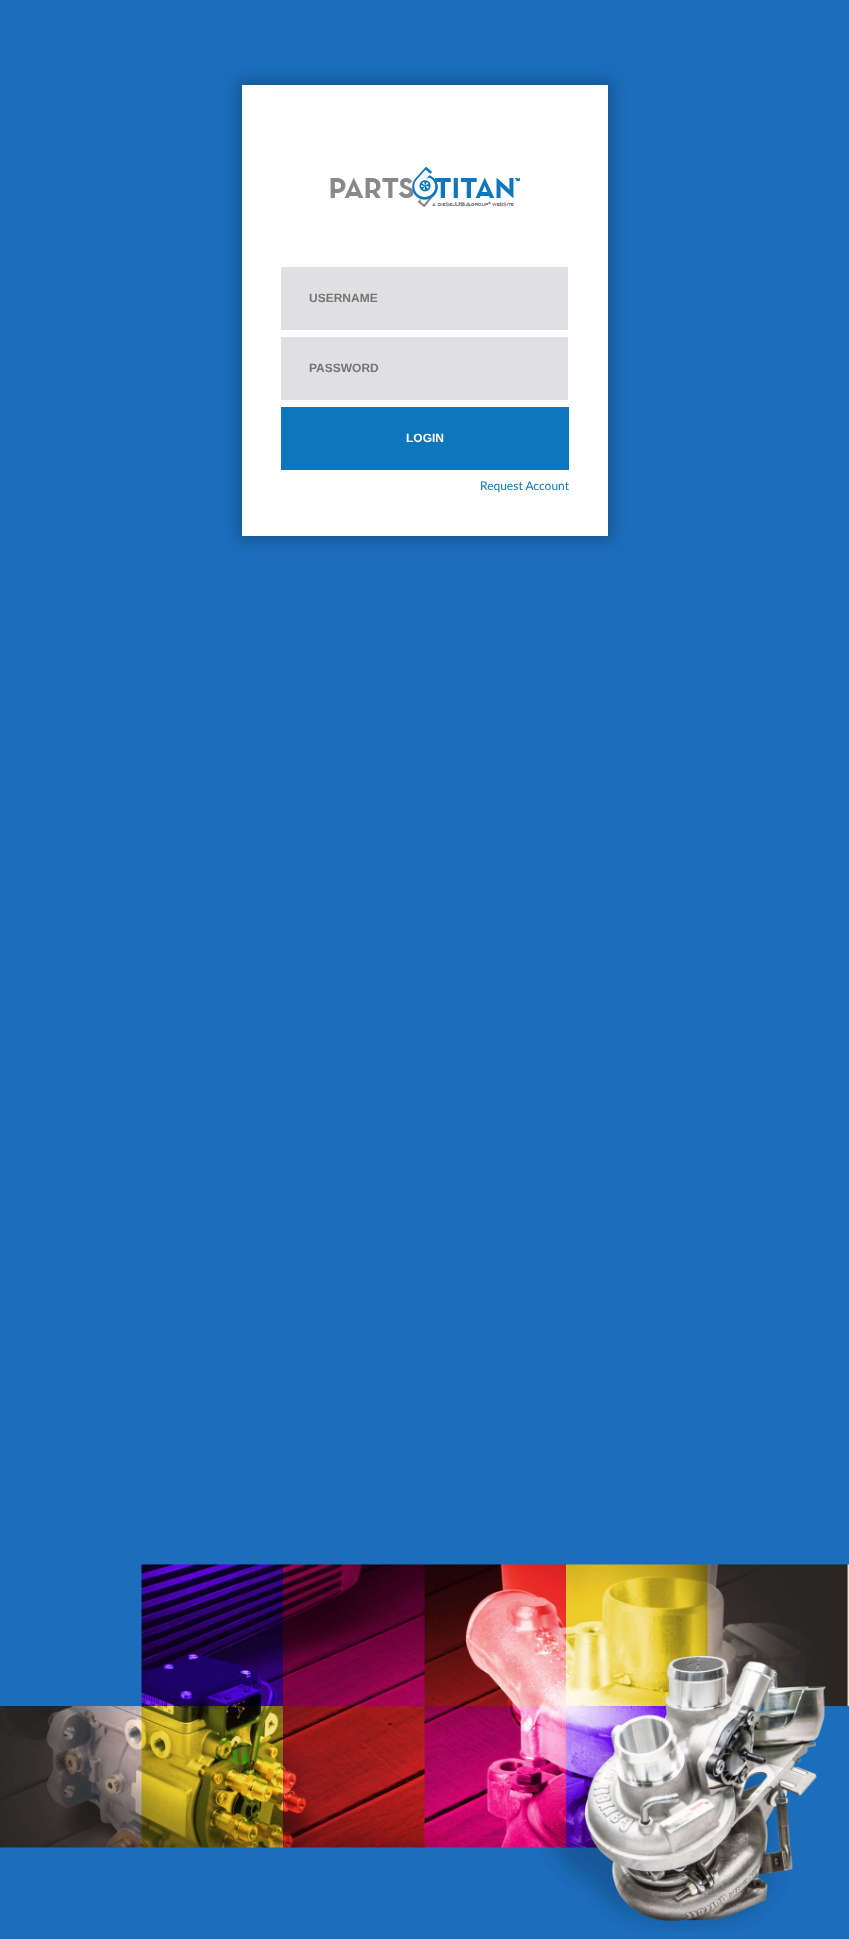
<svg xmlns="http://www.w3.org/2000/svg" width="849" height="1939">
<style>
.a{font:bold 12px Liberation Sans;fill:#757575}
.b{font:bold 12px Liberation Sans;fill:#fff}
.c{font:12px Lato;fill:#0e77bb}
</style>
<rect width="100%" height="100%" fill="#1b6ebc"/>
<image href="1.png" x="0" y="1563" width="849" height="370"/>
<path fill="#00000036" filter="blur(7.5px)" d="M237 80h376v461H237z"/>
<path fill="#fff" d="M242 85h366v451H242z"/>
<image href="2.png" x="330" y="167" width="191" height="40"/>
<path fill="#e0e0e2" d="M281 267h287v63H281z"/>
<path fill="#e0e0e2" d="M281 337h287v63H281z"/>
<path fill="#0e77bb" d="M281 407h288v63H281z"/>
<text class="a" x="309" y="302">USERNAME</text>
<text class="a" x="309" y="372">PASSWORD</text>
<text class="b" x="406" y="442">LOGIN</text>
<text class="c" x="480" y="490">Request Account</text>
</svg>
